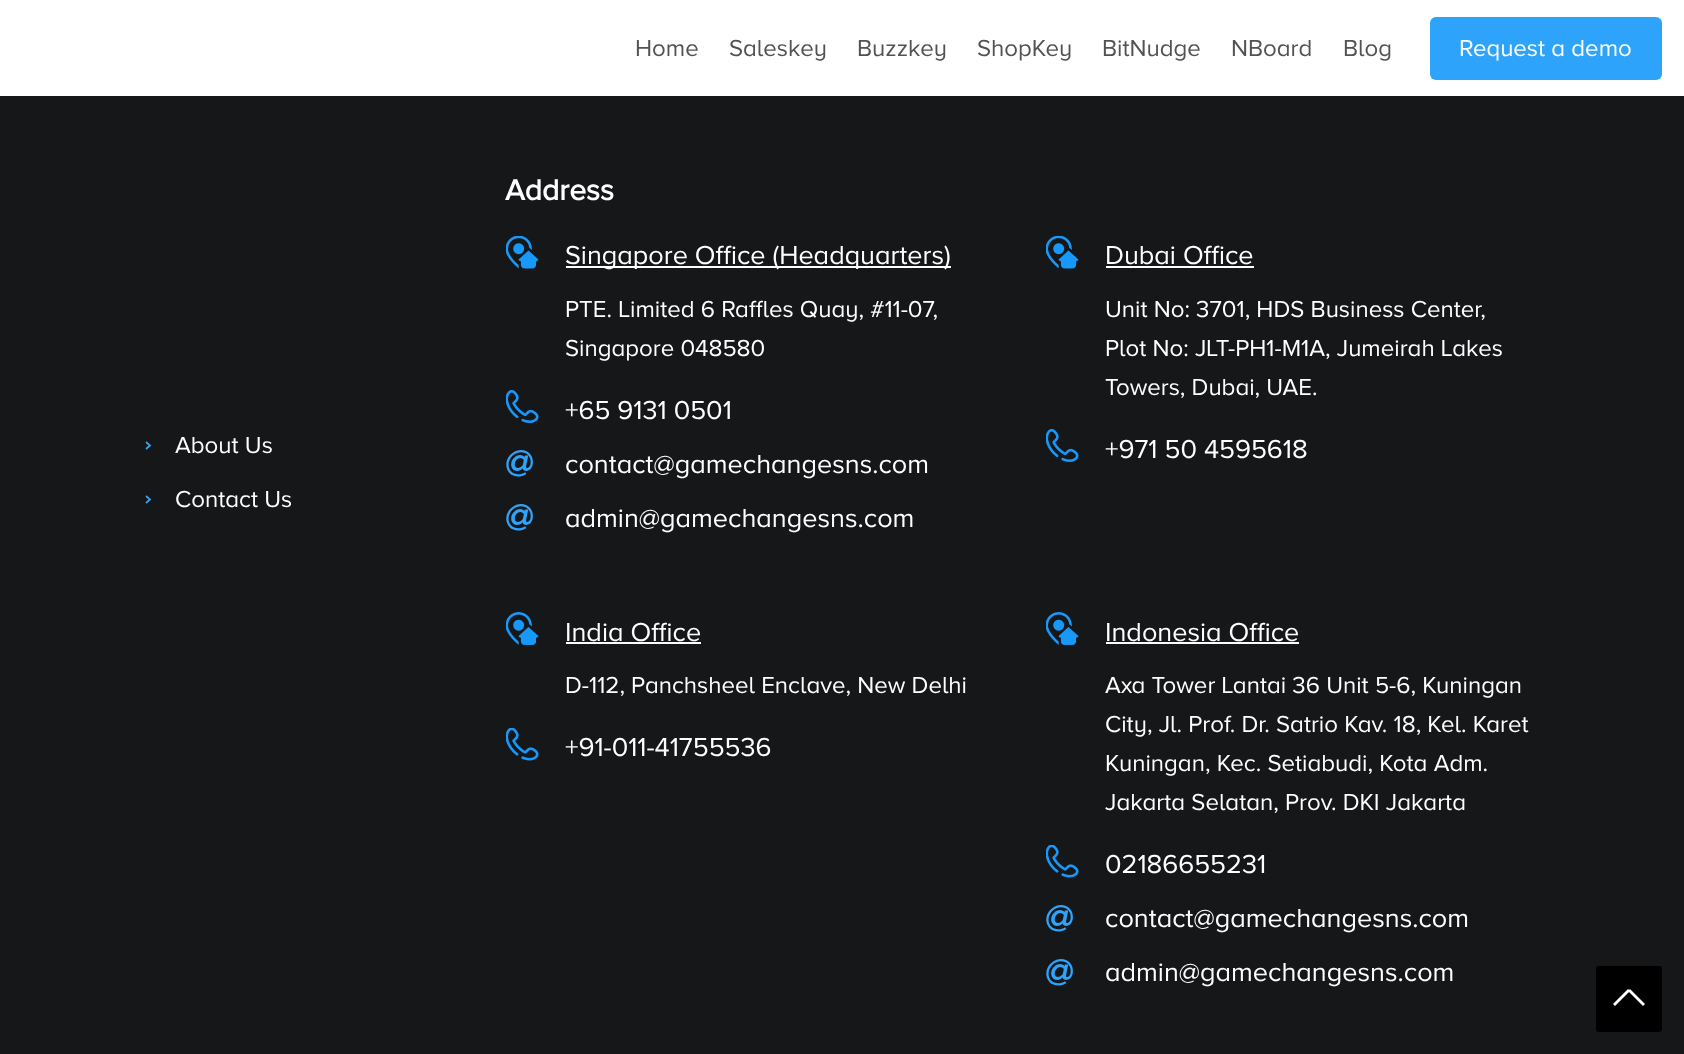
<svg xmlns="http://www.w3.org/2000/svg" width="1684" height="1054">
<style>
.a{font:24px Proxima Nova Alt;fill:#525252}
.b{font:24px Proxima Nova Alt;fill:#fff}
.c{font:bold 30px Proxima Nova Alt;fill:#fff}
.d{font:27px Proxima Nova Alt;fill:#fff}
.e{font:bold 36px Proxima Nova Alt;fill:#2ea3fb}
</style>
<rect width="100%" height="100%" fill="#161719"/>
<path fill="#fff" d="M0 0h1684v96H0z"/>
<rect fill="#2ea3fb" x="1430" y="17" width="232" height="63" rx="6"/>
<path fill="none" stroke="#2ea3fb" stroke-width="1.8" d="M146 442l4 3.5l-4 3.5m0 47l4 3.5l-4 3.5"/>
<image href="1.png" x="506" y="236" width="33" height="33"/>
<path fill="#fff" d="M566 266h385v2H566z"/>
<image href="2.png" x="506" y="390" width="33" height="33"/>
<image href="1.png" x="1046" y="236" width="33" height="33"/>
<path fill="#fff" d="M1106 266h148v2H1106z"/>
<image href="2.png" x="1046" y="429" width="33" height="33"/>
<image href="3.png" x="506" y="612" width="33" height="33"/>
<path fill="#fff" d="M566 642h135v2H566z"/>
<image href="4.png" x="506" y="728" width="33" height="33"/>
<image href="3.png" x="1046" y="612" width="33" height="33"/>
<path fill="#fff" d="M1106 642h193v2H1106z"/>
<image href="4.png" x="1046" y="845" width="33" height="33"/>
<rect fill="#000" x="1596" y="966" width="66" height="66" rx="3"/>
<path fill="#fff" d="M1628 989l2 2l-15 15l-2-2z"/>
<path fill="#fff" d="M1628 991l2-2l15 15l-2 2z"/>
<text class="a" x="635" y="56">Home</text>
<text class="a" x="729" y="56">Saleskey</text>
<text class="a" x="857" y="56">Buzzkey</text>
<text class="a" x="977" y="56">ShopKey</text>
<text class="a" x="1102" y="56">BitNudge</text>
<text class="a" x="1231" y="56">NBoard</text>
<text class="a" x="1343" y="56">Blog</text>
<text class="b" x="1459" y="56">Request a demo</text>
<text class="b" x="175" y="453">About Us</text>
<text class="b" x="175" y="507">Contact Us</text>
<text class="c" x="505" y="200">Address</text>
<text class="d" x="565" y="264">Singapore Office (Headquarters)</text>
<text class="b" x="565" y="317">PTE. Limited 6 Raffles Quay, #11-07,</text>
<text class="b" x="565" y="356">Singapore 048580</text>
<text class="d" x="565" y="419">+65 9131 0501</text>
<text class="e" x="505" y="474">@</text>
<text class="d" x="565" y="473">contact@gamechangesns.com</text>
<text class="e" x="505" y="528">@</text>
<text class="d" x="565" y="527">admin@gamechangesns.com</text>
<text class="d" x="1105" y="264">Dubai Office</text>
<text class="b" x="1105" y="317">Unit No: 3701, HDS Business Center,</text>
<text class="b" x="1105" y="356">Plot No: JLT-PH1-M1A, Jumeirah Lakes</text>
<text class="b" x="1105" y="395">Towers, Dubai, UAE.</text>
<text class="d" x="1105" y="458">+971 50 4595618</text>
<text class="d" x="565" y="641">India Office</text>
<text class="b" x="565" y="693">D-112, Panchsheel Enclave, New Delhi</text>
<text class="d" x="565" y="756">+91-011-41755536</text>
<text class="d" x="1105" y="641">Indonesia Office</text>
<text class="b" x="1105" y="693">Axa Tower Lantai 36 Unit 5-6, Kuningan</text>
<text class="b" x="1105" y="732">City, Jl. Prof. Dr. Satrio Kav. 18, Kel. Karet</text>
<text class="b" x="1105" y="771">Kuningan, Kec. Setiabudi, Kota Adm.</text>
<text class="b" x="1105" y="810">Jakarta Selatan, Prov. DKI Jakarta</text>
<text class="d" x="1105" y="873">02186655231</text>
<text class="e" x="1045" y="929">@</text>
<text class="d" x="1105" y="927">contact@gamechangesns.com</text>
<text class="e" x="1045" y="983">@</text>
<text class="d" x="1105" y="981">admin@gamechangesns.com</text>
</svg>
